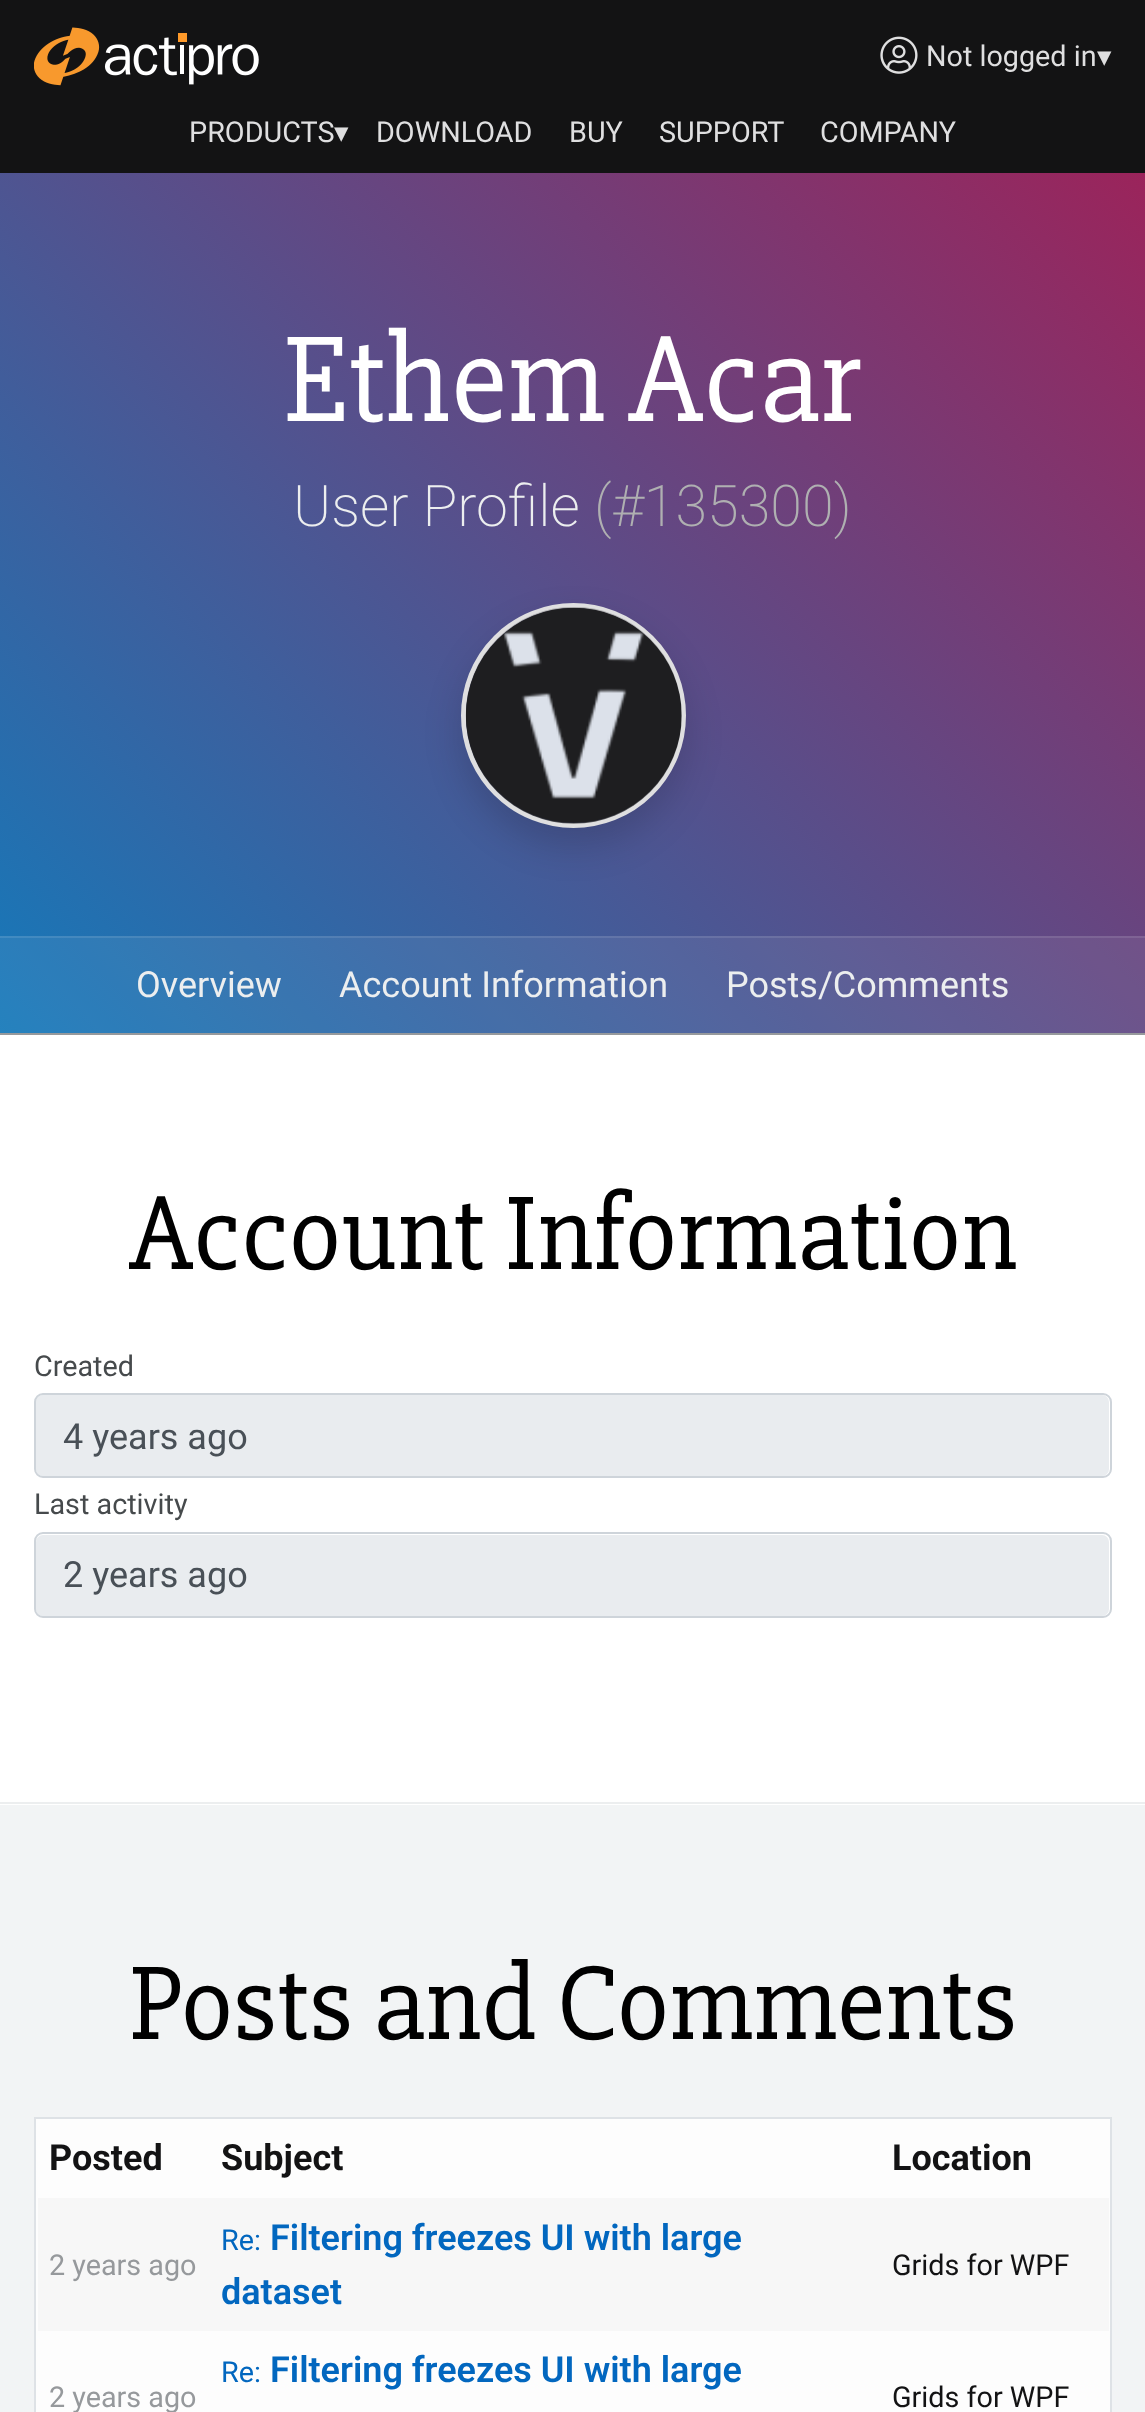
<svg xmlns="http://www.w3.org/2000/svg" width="1145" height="2412">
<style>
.a{font:28.75px Roboto;fill:#dfdfe0}
.b{font:28.75px DejaVu Sans;fill:#dfdfe0}
.c{font:126px 'Slabo 27px';fill:#fff}
.d{font:200 57.5px Roboto;fill:#eceeef}
.e{font:200 57.5px Roboto;fill:#afb0b1}
.f{font:36px Roboto;fill:#eceeef}
.g{font:108px 'Slabo 27px';fill:#000}
.h{font:28.75px Roboto;fill:#464a4c}
.i{font:36px Roboto;fill:#495057}
.j{font:bold 36px Roboto;fill:#131314}
.k{font:28.75px Roboto;fill:#96999c}
.l{font:28.75px Roboto;fill:#0267bf}
.m{font:600 36px Roboto;fill:#0267bf}
.n{font:28.75px Roboto;fill:#131314}
</style>
<defs>
<linearGradient id="g1" gradientUnits="userSpaceOnUse" x1="71" y1="1104" x2="1074" y2="102"><stop offset="0" stop-color="#1579ba"/><stop offset="1" stop-color="#9b245b"/></linearGradient>
</defs>
<rect width="100%" height="100%" fill="#fff"/>
<path fill="#131314" d="M0 0h1145v173H0z"/>
<image href="1.png" x="34" y="27" width="225" height="59"/>
<image href="2.png" x="880" y="36" width="38" height="38"/>
<path fill="url(#g1)" d="M0 173h1145v860H0z"/>
<path fill="#96999c" d="M0 1033h1145v2H0z"/>
<rect fill="#00000026" filter="blur(18px)" x="461" y="621" width="225" height="225" rx="112.5"/>
<circle fill="none" stroke="#dfdfe0" stroke-width="5" cx="573.5" cy="715.5" r="110"/>
<image href="3.png" x="465" y="607" width="217" height="217"/>
<path fill="#ffffff12" d="M0 936h1145v97H0z"/>
<path fill="#ffffff1a" d="M0 936h1145v2H0z"/>
<rect fill="#e9ecef" x="36" y="1395" width="1073" height="81" rx="7"/>
<rect fill="none" stroke="#ced4da" stroke-width="2" x="35" y="1394" width="1076" height="83" rx="8"/>
<rect fill="#e9ecef" x="36" y="1535" width="1073" height="81" rx="7"/>
<rect fill="none" stroke="#ced4da" stroke-width="2" x="35" y="1533" width="1076" height="84" rx="8"/>
<path fill="#f2f4f5" d="M0 1805h1145v607H0z"/>
<path fill="#eceeef" d="M0 1802h1145v2H0z"/>
<path fill="#fdfdfd" stroke="#dee2e6" stroke-width="2" d="M35 2118h1076v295H35z"/>
<path fill="#f7f7f7" d="M38 2198h1071v133H38z"/>
<text class="a" x="926" y="66">Not logged in</text>
<text class="b" x="1097" y="66">▾</text>
<text class="a" x="189" y="142">PRODUCTS</text>
<text class="b" x="334" y="142">▾</text>
<text class="a" x="376" y="142">DOWNLOAD</text>
<text class="a" x="569" y="142">BUY</text>
<text class="a" x="659" y="142">SUPPORT</text>
<text class="a" x="820" y="142">COMPANY</text>
<text class="c" x="283" y="421">Ethem Acar</text>
<text class="d" x="293" y="526">User Profile</text>
<text class="e" x="594" y="526">(#135300)</text>
<text class="f" x="136" y="997">Overview</text>
<text class="f" x="339" y="997">Account Information</text>
<text class="f" x="726" y="997">Posts/Comments</text>
<text class="g" x="129" y="1269">Account Information</text>
<text class="h" x="34" y="1376">Created</text>
<text class="i" x="63" y="1449">4 years ago</text>
<text class="h" x="34" y="1514">Last activity</text>
<text class="i" x="63" y="1587">2 years ago</text>
<text class="g" x="129" y="2039">Posts and Comments</text>
<text class="j" x="49" y="2170">Posted</text>
<text class="j" x="221" y="2170">Subject</text>
<text class="j" x="892" y="2170">Location</text>
<text class="k" x="49" y="2275">2 years ago</text>
<text class="l" x="221" y="2250">Re:</text>
<text class="m" x="270" y="2250">Filtering freezes UI with large</text>
<text class="m" x="221" y="2304">dataset</text>
<text class="n" x="892" y="2275">Grids for WPF</text>
<text class="l" x="221" y="2382">Re:</text>
<text class="m" x="270" y="2382">Filtering freezes UI with large</text>
<text class="k" x="49" y="2407">2 years ago</text>
<text class="n" x="892" y="2407">Grids for WPF</text>
</svg>
